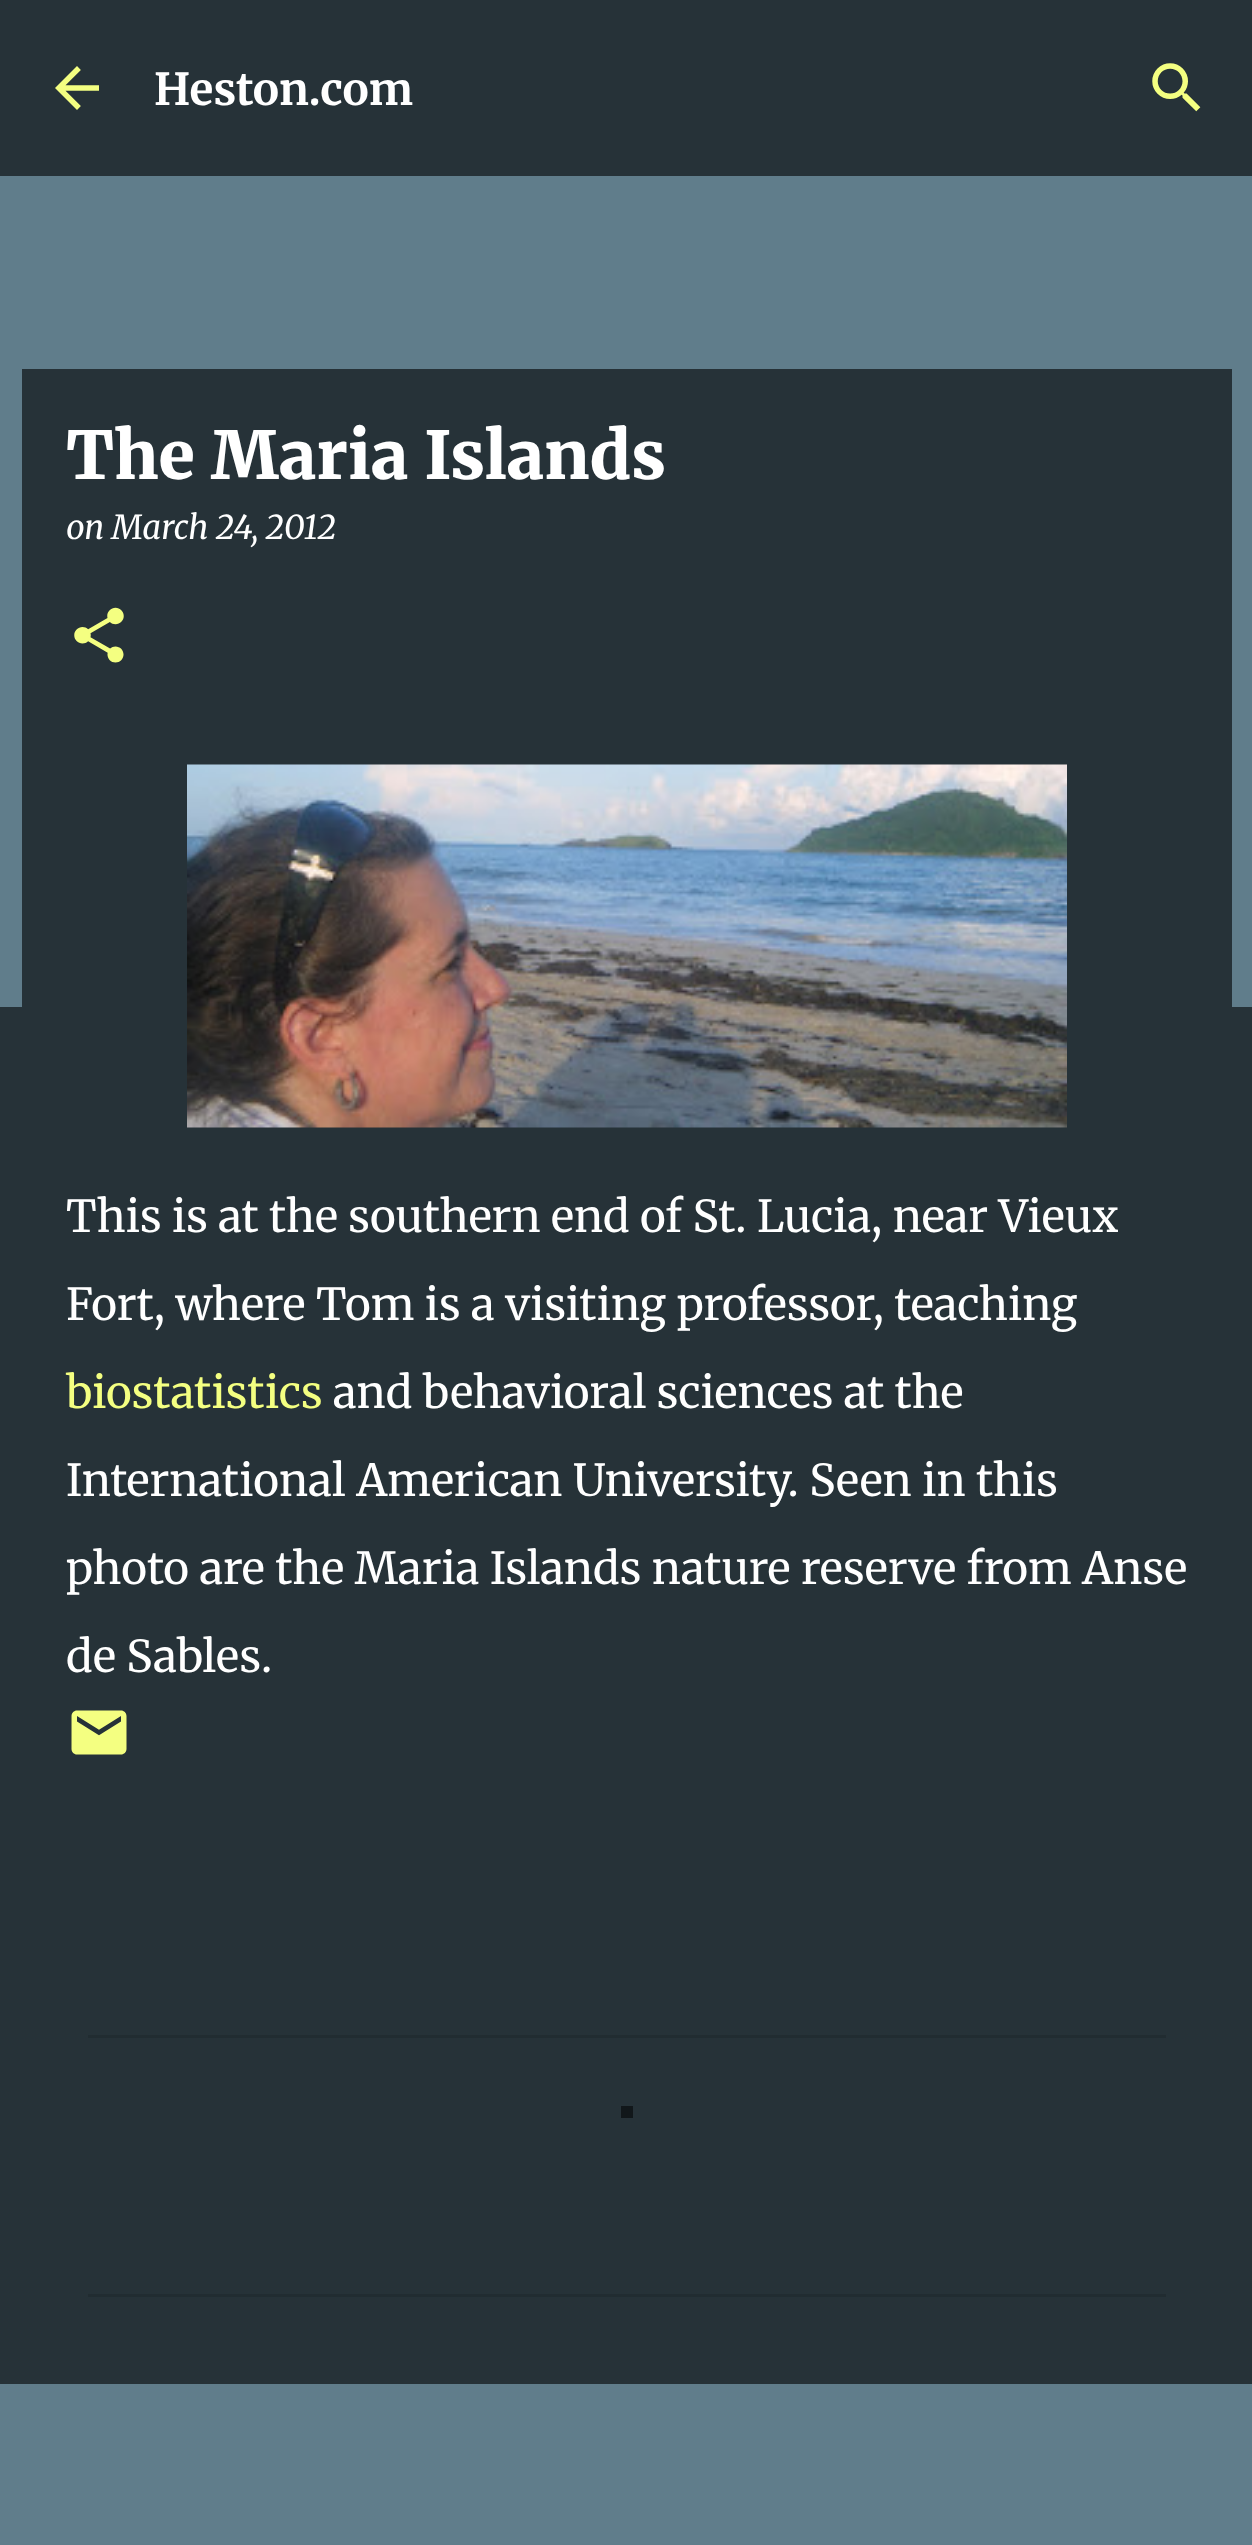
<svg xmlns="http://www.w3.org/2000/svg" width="1252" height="2545">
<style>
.a{font:bold 44px Merriweather;fill:#fff}
.b{font:900 66px Merriweather;fill:#fff}
.c{font:italic 33px Merriweather;fill:#fff}
.d{font:44px Merriweather;fill:#fff}
.e{font:44px Merriweather;fill:#f4ff81}
</style>
<rect width="100%" height="100%" fill="#607d8b"/>
<path fill="#263238" d="M0 0h1252v176H0z"/>
<image href="1.png" x="55" y="66" width="44" height="44"/>
<image href="2.png" x="1152" y="63" width="49" height="49"/>
<path fill="#263238" d="M0 1007h1252v1377H0z"/>
<path fill="#263238" d="M22 369h1210v638H22z"/>
<image href="3.png" x="74" y="607" width="50" height="56"/>
<image href="4.png" x="187" y="764" width="880" height="364"/>
<image href="5.png" x="71" y="1710" width="56" height="45"/>
<path fill="#212c31" d="M88 2035h1078v3H88z"/>
<path fill="#212c31" d="M88 2294h1078v3H88z"/>
<path fill="#11171a" d="M621 2106h12v12H621z"/>
<text class="a" x="154" y="105">Heston.com</text>
<text class="b" x="66" y="479">The Maria Islands</text>
<text class="c" x="66" y="539">on March 24, 2012</text>
<text class="d" x="66" y="1232">This is at the southern end of St. Lucia, near Vieux</text>
<text class="d" x="66" y="1320">Fort, where Tom is a visiting professor, teaching</text>
<text class="e" x="66" y="1408">biostatistics</text>
<text class="d" x="333" y="1408">and behavioral sciences at the</text>
<text class="d" x="66" y="1496">International American University. Seen in this</text>
<text class="d" x="66" y="1584">photo are the Maria Islands nature reserve from Anse</text>
<text class="d" x="66" y="1672">de Sables.</text>
</svg>
